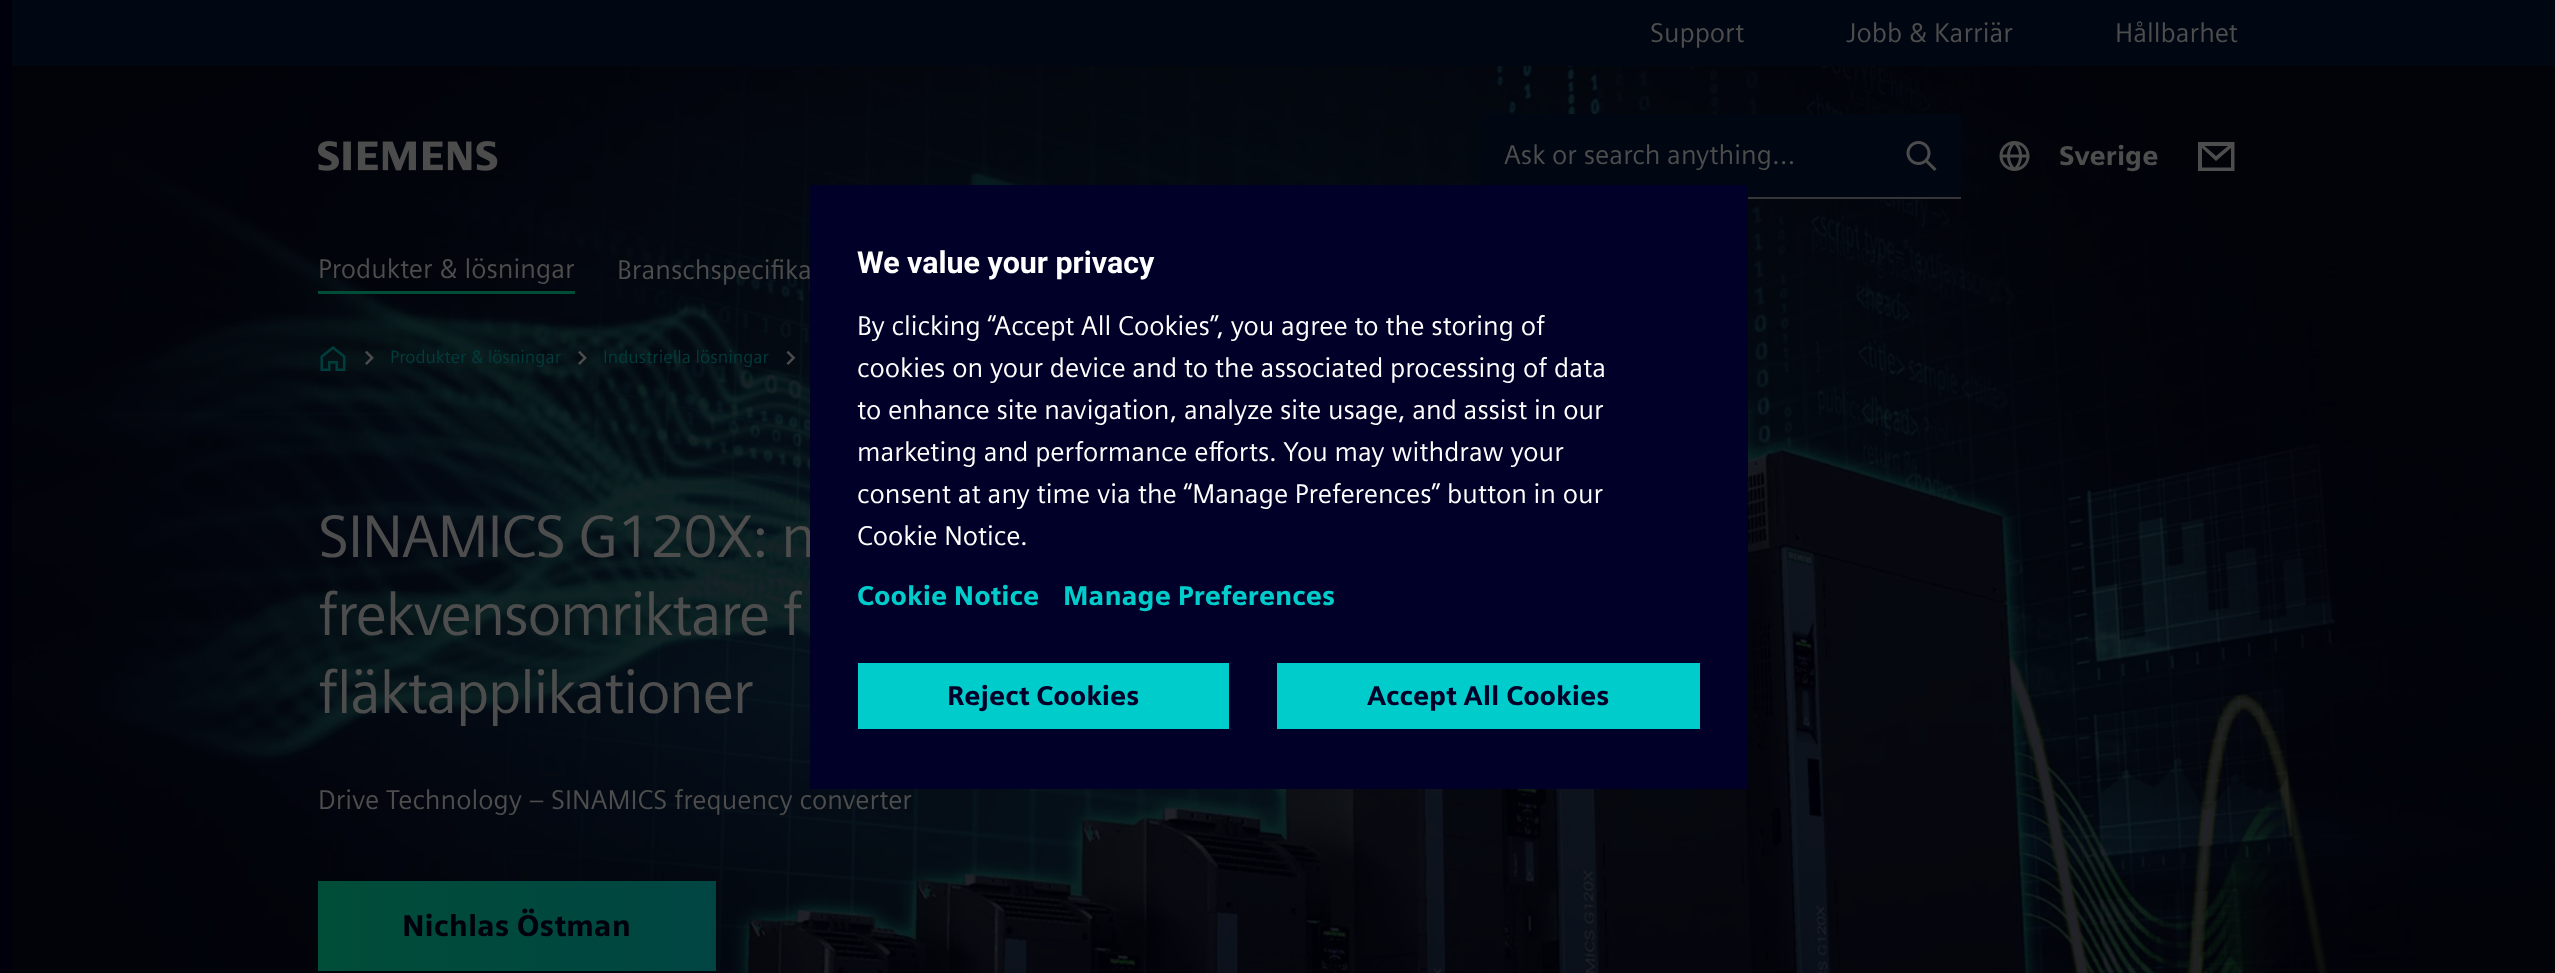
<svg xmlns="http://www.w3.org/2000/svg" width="2555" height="973">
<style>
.a{font:27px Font;fill:#4d4d4d}
.b{font:bold 27px Font;fill:#4d4d4d}
.c{font:18px Font;fill:#003d3d}
.d{font:60px Font;letter-spacing:-1.5px;fill:#4d4d4d}
.e{font:bold 30px Font;fill:#00000c}
.f{font:bold 30.4px Roboto;fill:#fff}
.g{font:27px Font;fill:#fff}
.h{font:bold 27px Font;fill:#0cc}
.i{font:bold 27px Font;fill:#000028}
</style>
<defs>
<linearGradient id="g1" gradientUnits="userSpaceOnUse" x1="318" y1="926" x2="716" y2="926"><stop offset="0" stop-color="#004d38"/><stop offset="1" stop-color="#004542"/></linearGradient>
</defs>
<rect width="100%" height="100%" fill="#00000c"/>
<path fill="#000712" d="M12 0h2543v66H12z"/>
<image href="8.png" x="12" y="66" width="2543" height="907"/>
<image href="1.png" x="318" y="141" width="180" height="30"/>
<path fill="#000712" d="M1481 114h480v83H1481z"/>
<path fill="#363639" d="M1748 197h213v2H1748z"/>
<image href="2.png" x="1906" y="141" width="31" height="30"/>
<image href="3.png" x="1999" y="141" width="31" height="30"/>
<path fill="#4d4d4d" fill-rule="evenodd" d="M2198 142v29h36.5v-29zm30 4l-12 10l-11.5-10zm-26 2v19.5h29v-19.5l-15 13z"/>
<path fill="#004d38" d="M318 291h257v3H318z"/>
<image href="4.png" x="320" y="346" width="26" height="25"/>
<image href="5.png" x="365" y="350" width="9" height="15"/>
<image href="6.png" x="578" y="350" width="9" height="15"/>
<image href="7.png" x="786" y="350" width="10" height="15"/>
<path fill="url(#g1)" d="M318 881h398v90H318z"/>
<text class="a" x="1650" y="42">Support</text>
<text class="a" x="1846" y="42">Jobb &amp; Karriär</text>
<text class="a" x="2115" y="42">Hållbarhet</text>
<text class="a" x="1504" y="164">Ask or search anything…</text>
<text class="b" x="2059" y="165">Sverige</text>
<text class="a" x="318" y="278">Produkter &amp; lösningar</text>
<text class="a" x="617" y="279">Branschspecifika</text>
<text class="c" x="390" y="363">Produkter &amp; lösningar</text>
<text class="c" x="603" y="363">Industriella lösningar</text>
<text class="d" x="318" y="557">SINAMICS G120X: n</text>
<text class="d" x="318" y="635">frekvensomriktare f</text>
<text class="d" x="318" y="713">fläktapplikationer</text>
<text class="a" x="318" y="809">Drive Technology – SINAMICS frequency converter</text>
<text class="e" x="402" y="936">Nichlas Östman</text>
<path fill="#000028" d="M810 185h938v604H810z"/>
<text class="f" x="857" y="273">We value your privacy</text>
<text class="g" x="857" y="335">By clicking “Accept All Cookies”, you agree to the storing of</text>
<text class="g" x="857" y="377">cookies on your device and to the associated processing of data</text>
<text class="g" x="857" y="419">to enhance site navigation, analyze site usage, and assist in our</text>
<text class="g" x="857" y="461">marketing and performance efforts. You may withdraw your</text>
<text class="g" x="857" y="503">consent at any time via the “Manage Preferences” button in our</text>
<text class="g" x="857" y="545">Cookie Notice.</text>
<text class="h" x="857" y="605">Cookie Notice</text>
<text class="h" x="1063" y="605">Manage Preferences</text>
<path fill="#0cc" d="M858 663h371v66H858z"/>
<text class="i" x="947" y="705">Reject Cookies</text>
<path fill="#0cc" d="M1277 663h423v66H1277z"/>
<text class="i" x="1367" y="705">Accept All Cookies</text>
</svg>
